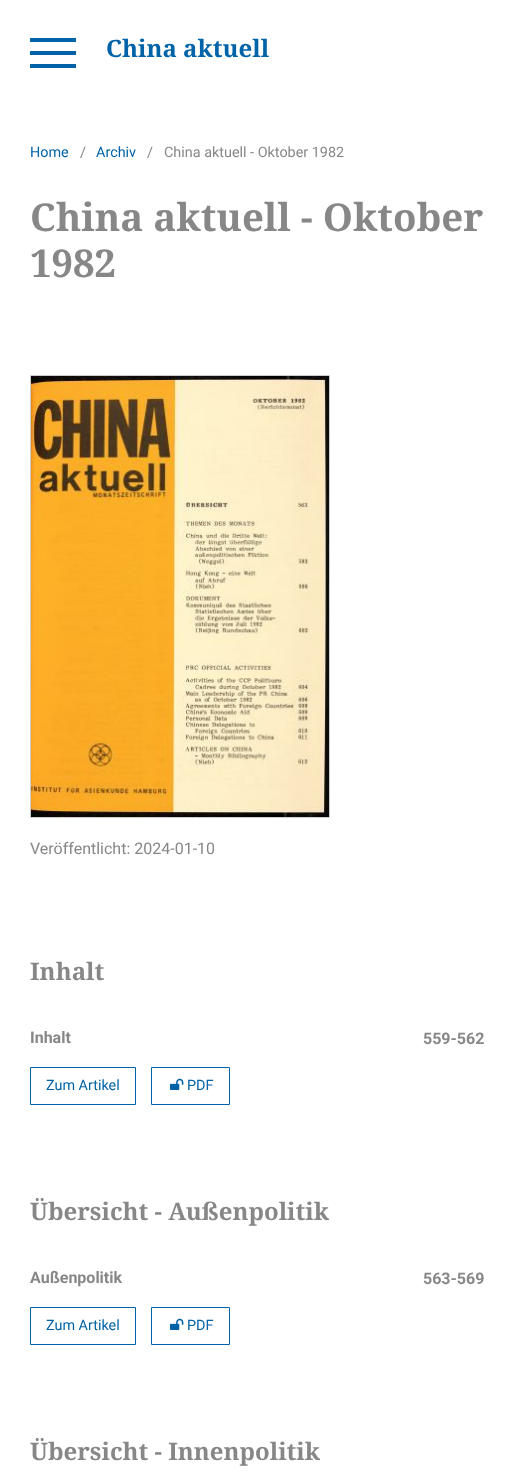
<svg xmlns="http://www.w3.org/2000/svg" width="514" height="1483">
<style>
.a{font:bold 24px Noto Serif;fill:#0063a8}
.b{font:14.4px Roboto;fill:#0063a8}
.c{font:14.4px Roboto;fill:#878787}
.d{font:bold 38.4px Noto Serif;fill:#878787}
.e{font:16px Roboto;fill:#878787}
.f{font:bold 24px Noto Serif;fill:#878787}
.g{font:bold 16px Roboto;fill:#878787}
</style>
<rect width="100%" height="100%" fill="#fff"/>
<path fill="#0063a8" d="M30 64h46v4H30z"/>
<path fill="#0063a8" d="M30 38h46v4H30z"/>
<path fill="#0063a8" d="M30 51h46v4H30z"/>
<path fill="none" stroke="#ccc" d="M30.5 375.5h299v442H30.5z"/>
<image href="1.png" x="31" y="376" width="298" height="441"/>
<path fill="none" stroke="#0063a8" d="M30.5 1067.5h105v37H30.5z"/>
<path fill="none" stroke="#0063a8" d="M151.5 1067.5h78v37H151.5z"/>
<image href="2.png" x="170" y="1078" width="14" height="12"/>
<path fill="none" stroke="#0063a8" d="M30.5 1307.5h105v37H30.5z"/>
<path fill="none" stroke="#0063a8" d="M151.5 1307.5h78v37H151.5z"/>
<image href="2.png" x="170" y="1318" width="14" height="12"/>
<text class="a" x="106" y="57">China aktuell</text>
<text class="b" x="30" y="157">Home</text>
<text class="c" x="80" y="157">/</text>
<text class="b" x="96" y="157">Archiv</text>
<text class="c" x="147" y="157">/</text>
<text class="c" x="164" y="157">China aktuell - Oktober 1982</text>
<text class="d" x="30" y="231">China aktuell - Oktober</text>
<text class="d" x="30" y="277">1982</text>
<text class="e" x="30" y="854">Veröffentlicht: 2024-01-10</text>
<text class="f" x="30" y="980">Inhalt</text>
<text class="g" x="30" y="1043">Inhalt</text>
<text class="b" x="46" y="1090">Zum Artikel</text>
<text class="b" x="187" y="1090">PDF</text>
<text class="g" x="423" y="1044">559-562</text>
<text class="f" x="30" y="1220">Übersicht - Außenpolitik</text>
<text class="g" x="30" y="1283">Außenpolitik</text>
<text class="b" x="46" y="1330">Zum Artikel</text>
<text class="b" x="187" y="1330">PDF</text>
<text class="g" x="423" y="1284">563-569</text>
<text class="f" x="30" y="1460">Übersicht - Innenpolitik</text>
</svg>
